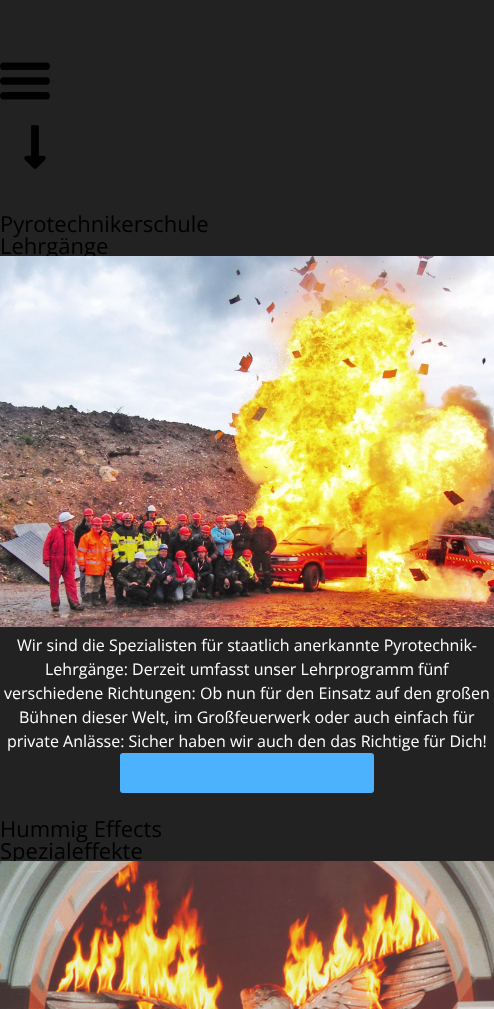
<svg xmlns="http://www.w3.org/2000/svg" width="494" height="1009">
<style>
.a{font:22px Open Sans;fill:#000}
.b{font:16px Open Sans;fill:#fff}
</style>
<rect width="100%" height="100%" fill="#222"/>
<image href="1.png" x="0" y="62" width="50" height="38"/>
<image href="2.png" x="24" y="125" width="22" height="44"/>
<rect fill="#4db2fe" x="120" y="753" width="254" height="40" rx="3"/>
<text class="a" x="0" y="232">Pyrotechnikerschule</text>
<text class="a" x="0" y="254">Lehrgänge</text>
<image href="3.png" x="0" y="256" width="494" height="371"/>
<text class="b" x="17" y="651">Wir sind die Spezialisten für staatlich anerkannte Pyrotechnik-</text>
<text class="b" x="45" y="675">Lehrgänge: Derzeit umfasst unser Lehrprogramm fünf</text>
<text class="b" x="4" y="699">verschiedene Richtungen: Ob nun für den Einsatz auf den großen</text>
<text class="b" x="19" y="723">Bühnen dieser Welt, im Großfeuerwerk oder auch einfach für</text>
<text class="b" x="7" y="747">private Anlässe: Sicher haben wir auch den das Richtige für Dich!</text>
<text class="a" x="0" y="837">Hummig Effects</text>
<text class="a" x="0" y="859">Spezialeffekte</text>
<image href="4.png" x="0" y="861" width="494" height="148"/>
</svg>
